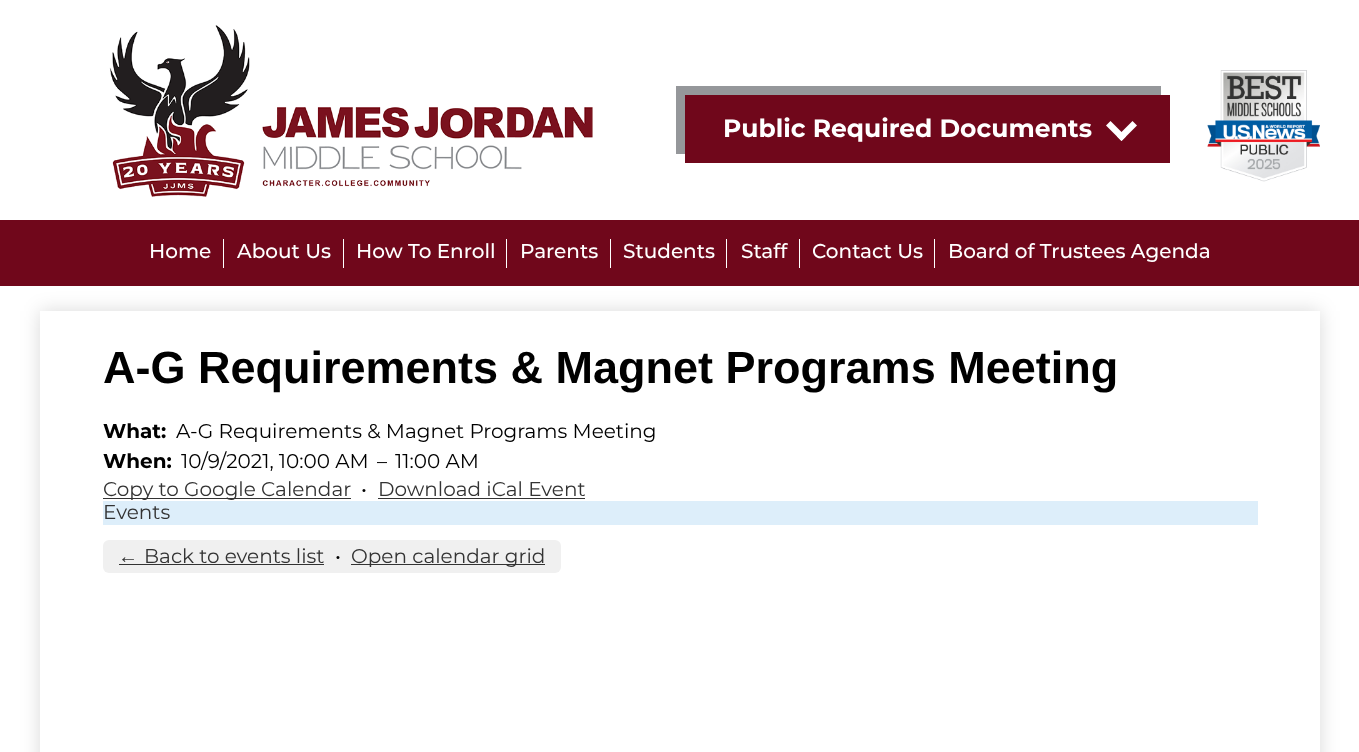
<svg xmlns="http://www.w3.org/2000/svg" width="1359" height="752">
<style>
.a{font:bold 25px Montserrat;fill:#fff}
.b{font:500 20px Montserrat;fill:#fff}
.c{font:bold 45px Liberation Sans;fill:#000}
.d{font:bold 20px Montserrat;fill:#000}
.e{font:20px Montserrat;fill:#000}
.f{font:20px Montserrat;fill:#333}
.g{font:20px Liberation Sans;fill:#333}
</style>
<rect width="100%" height="100%" fill="#fff"/>
<image href="1.png" x="109" y="25" width="484" height="172"/>
<path fill="#95979a" d="M676 86v68h9v-59h476v-9z"/>
<path fill="#70071b" d="M685 95h485v68H685z"/>
<path fill="#fff" d="M1132.5 121l4.5 4.5l-15.5 15.5l-4.5-4.5z"/>
<path fill="#fff" d="M1110.5 121l15.5 15.5l-4.5 4.5l-15.5-15.5z"/>
<image href="2.png" x="1207" y="70" width="113" height="112"/>
<path fill="#00000026" filter="blur(9.5px)" d="M40 311h1280v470H40z"/>
<path fill="#70071b" d="M0 220h1359v66H0z"/>
<path fill="#fff" d="M223 239h1v29H223z"/>
<path fill="#fff" d="M343 239h1v29H343z"/>
<path fill="#fff" d="M506 239h1v29H506z"/>
<path fill="#fff" d="M610 239h1v29H610z"/>
<path fill="#fff" d="M726 239h1v29H726z"/>
<path fill="#fff" d="M799 239h1v29H799z"/>
<path fill="#fff" d="M934 239h1v29H934z"/>
<path fill="#fff" d="M40 311h1280v441H40z"/>
<path fill="#333" d="M103 498h248v1H103z"/>
<path fill="#333" d="M378 498h207v1H378z"/>
<path fill="#ddeefa" d="M103 501h1155v24H103z"/>
<rect fill="#f0f0f0" x="103" y="540" width="458" height="33" rx="6"/>
<path fill="#333" d="M119 564h205v1H119z"/>
<path fill="#333" d="M351 564h194v1H351z"/>
<text class="a" x="723" y="137">Public Required Documents</text>
<text class="b" x="149" y="258">Home</text>
<text class="b" x="237" y="258">About Us</text>
<text class="b" x="356" y="258">How To Enroll</text>
<text class="b" x="520" y="258">Parents</text>
<text class="b" x="623" y="258">Students</text>
<text class="b" x="741" y="258">Staff</text>
<text class="b" x="812" y="258">Contact Us</text>
<text class="b" x="948" y="258">Board of Trustees Agenda</text>
<text class="c" x="103" y="383">A-G Requirements &amp; Magnet Programs Meeting</text>
<text class="d" x="103" y="438">What:</text>
<text class="e" x="176" y="438">A-G Requirements &amp; Magnet Programs Meeting</text>
<text class="d" x="103" y="468">When:</text>
<text class="e" x="181" y="468">10/9/2021, 10:00 AM</text>
<text class="e" x="377" y="468">–</text>
<text class="e" x="395" y="468">11:00 AM</text>
<text class="f" x="103" y="496">Copy to Google Calendar</text>
<text class="e" x="361" y="496">•</text>
<text class="f" x="378" y="496">Download iCal Event</text>
<text class="f" x="103" y="519">Events</text>
<text class="g" x="118" y="563">←</text>
<text class="f" x="144" y="563">Back to events list</text>
<text class="e" x="335" y="563">•</text>
<text class="f" x="351" y="563">Open calendar grid</text>
</svg>
